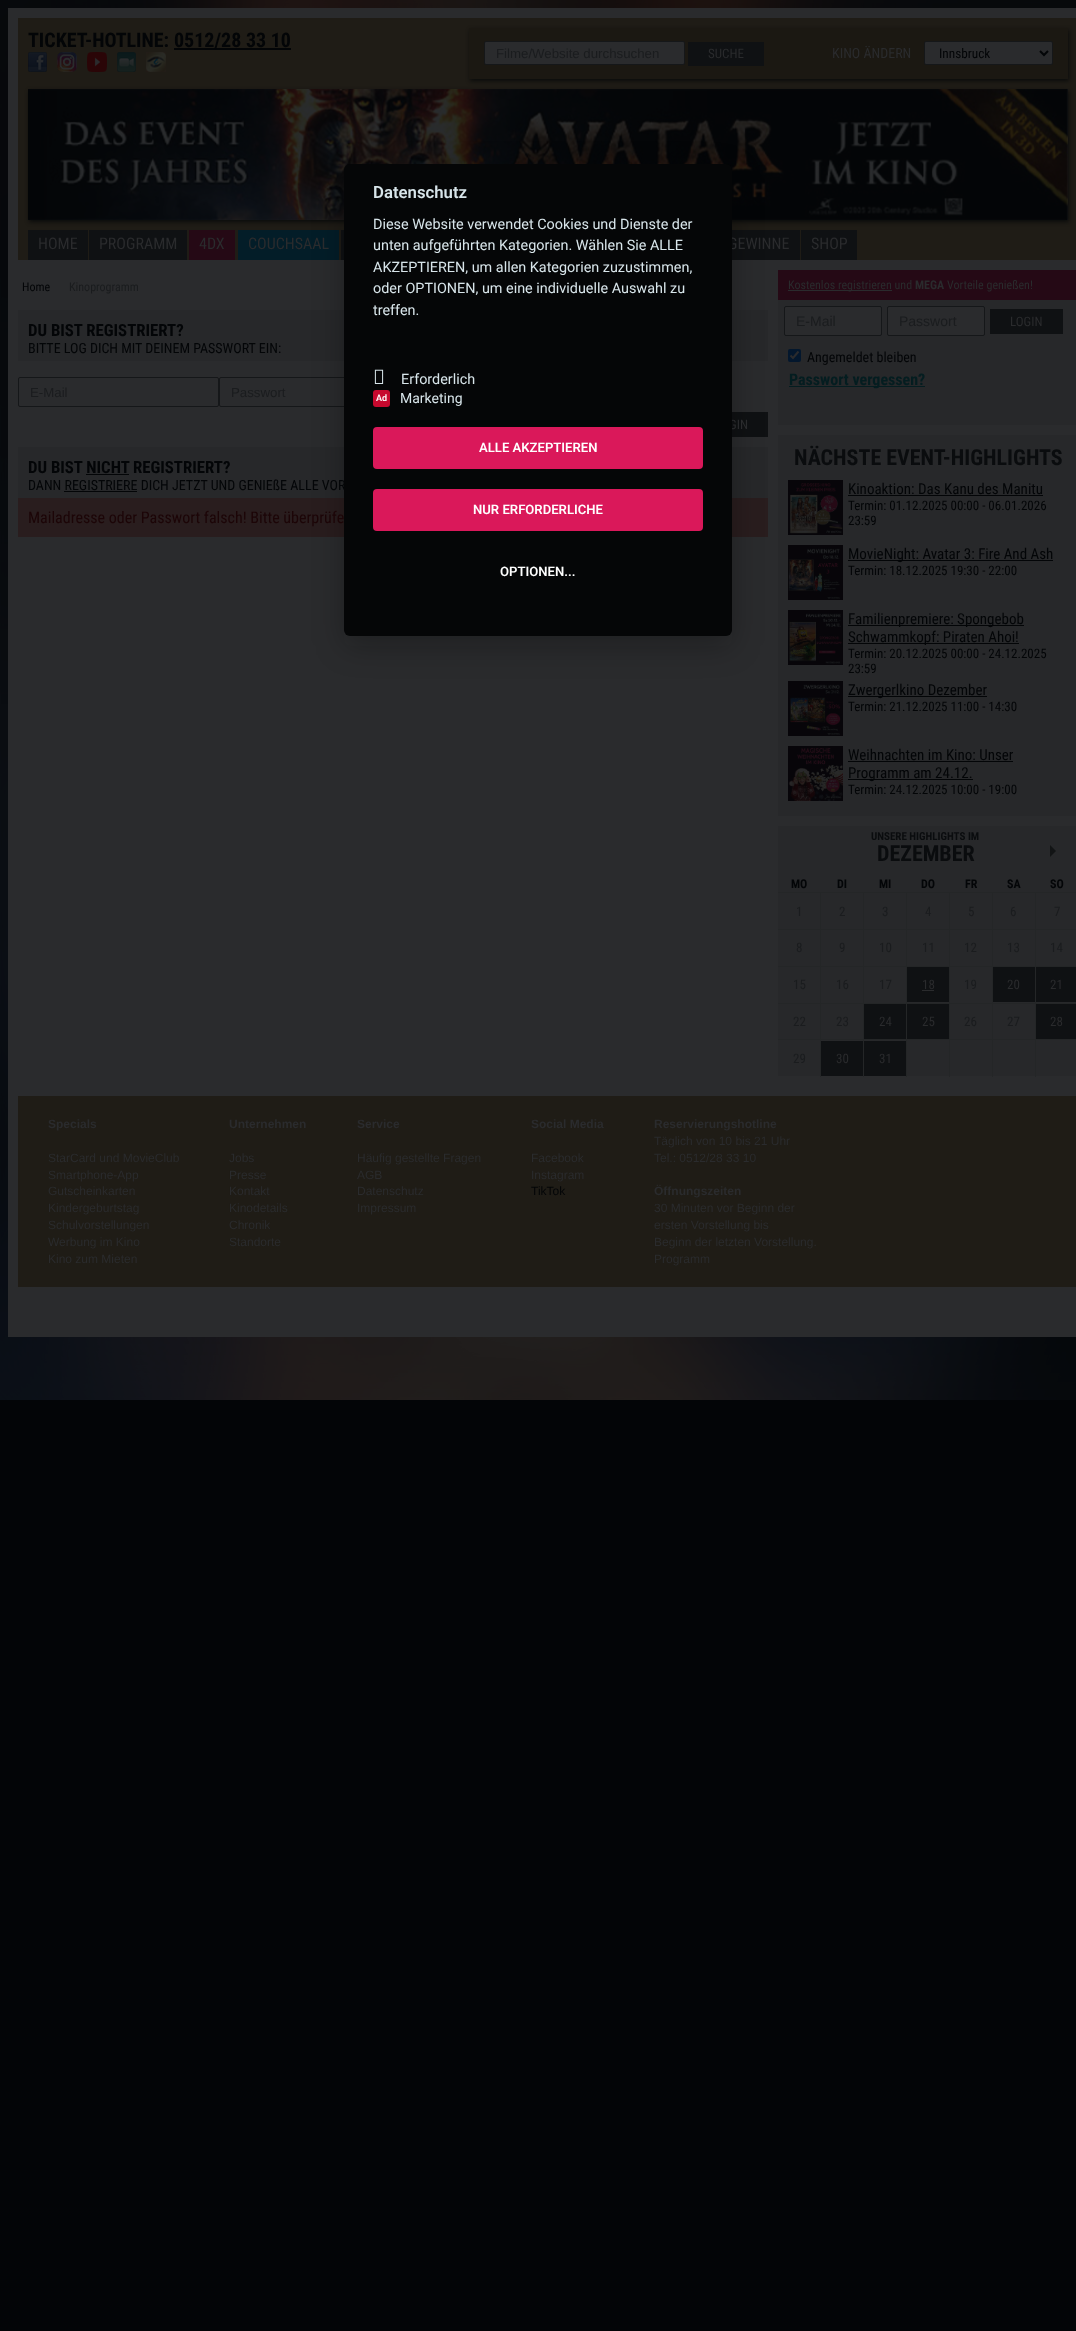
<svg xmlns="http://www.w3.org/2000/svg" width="1076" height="2331">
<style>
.a{font:bold 20px Roboto Condensed;fill:#030507}
.b{font:13.25px Liberation Sans;fill:#1a1c1e}
.c{font:13px Roboto Condensed;fill:#2a2b2d}
.d{font:14px Roboto Condensed;fill:#2a2b2d}
.e{font:13.25px Roboto Condensed;fill:#030507}
.f{font:16px Roboto Condensed;fill:#2a2b2d}
.g{font:12px Roboto Condensed;fill:#030507}
.h{font:12px Roboto Condensed;fill:#1a1c1e}
.i{font:bold 16.75px Roboto Condensed;fill:#030507}
.j{font:14px Roboto Condensed;fill:#030507}
.k{font:16px Roboto Condensed;fill:#1c0507}
.l{font:12px Roboto Condensed;fill:#2a2b2d}
.m{font:bold 12px Roboto Condensed;fill:#2a2b2d}
.n{font:14px Liberation Sans;fill:#1a1c1e}
.o{font:bold 16px Roboto Condensed;fill:#041d20}
.p{font:bold 22px Roboto Condensed;fill:#0a0c0e}
.q{font:15px Roboto Condensed;fill:#030507}
.r{font:13px Roboto Condensed;fill:#030507}
.s{font:bold 11px Roboto Condensed;fill:#0a0c0e}
.t{font:bold 12px Roboto Condensed;fill:#030507}
.u{font:13px Roboto Condensed;fill:#1a1c1e}
.v{font:bold 12px Liberation Sans;fill:#2a2b2d}
.w{font:12px Liberation Sans;fill:#2a2b2d}
.x{font:12px Liberation Sans;fill:#030507}
.y{font:600 16.75px Roboto;fill:#d8e5ea}
.z{font:14.4px Roboto;fill:#d8e5ea}
.a1{font:600 9px Roboto;fill:#fff}
.b1{font:14px Roboto;fill:#d8e5ea}
.c1{font:600 13.1px Roboto;fill:#fff}
</style>
<rect width="100%" height="100%" fill="#030507"/>
<image href="1.png" x="0" y="0" width="1076" height="1400"/>
<path fill="#2a2b2d" d="M8 8h1068v1329H8z"/>
<path fill="#1f1c16" d="M18 18h1058v242H18z"/>
<path fill="#030507" d="M174 48h117v2H174z"/>
<image href="2.png" x="28" y="52" width="19" height="20"/>
<image href="3.png" x="57" y="52" width="20" height="20"/>
<image href="4.png" x="87" y="52" width="20" height="20"/>
<image href="5.png" x="117" y="52" width="19" height="20"/>
<image href="6.png" x="146" y="52" width="20" height="20"/>
<path fill="#030507bf" filter="blur(2px)" d="M470 30h599v51H470z"/>
<path fill="#1b1812" d="M469 28h599v51H469z"/>
<rect fill="#2a2b2d" stroke="#151719" x="484.5" y="41.5" width="200" height="23" rx="1.5"/>
<path fill="#0f1113" d="M688 42h76v24H688z"/>
<rect fill="#2a2b2d" stroke="#151719" x="924.5" y="41.5" width="128" height="23" rx="1.5"/>
<path fill="none" stroke="#030507" stroke-width="2" d="M1040 51l4 4l4-4"/>
<path fill="#030507bf" filter="blur(2px)" d="M29 91h1040v131H29z"/>
<image href="7.png" x="28" y="89" width="1040" height="131"/>
<path fill="#0f1113" d="M28 230h60v30H28z"/>
<path fill="#0f1113" d="M89 230h98v30H89z"/>
<path fill="#250915" d="M189 230h46v30H189z"/>
<path fill="#031d28" d="M238 230h101v30H238z"/>
<path fill="#0f1113" d="M341 230h3v30H341z"/>
<path fill="#0f1113" d="M732 230h68v30H732z"/>
<path fill="#0f1113" d="M801 230h56v30H801z"/>
<path fill="#27282a" d="M18 310h750v51H18z"/>
<rect fill="none" stroke="#151719" x="18.5" y="377.5" width="200" height="29" rx="1.5"/>
<rect fill="none" stroke="#151719" x="219.5" y="377.5" width="200" height="29" rx="1.5"/>
<path fill="#0f1113" d="M732 412h36v25H732z"/>
<path fill="#27282a" d="M18 447h750v51H18z"/>
<path fill="#030507" d="M86 474h43v1H86z"/>
<path fill="#030507" d="M64 491h73v1H64z"/>
<path fill="#291d1e" d="M18 498h750v39H18z"/>
<path fill="#250915" d="M778 270h298v30H778z"/>
<path fill="#2a2b2d" d="M788 290h104v1H788z"/>
<path fill="#27282a" d="M778 300h298v125H778z"/>
<rect fill="#2a2b2d" stroke="#151719" x="784.5" y="306.5" width="97" height="29" rx="1.5"/>
<rect fill="#2a2b2d" stroke="#151719" x="887.5" y="306.5" width="97" height="29" rx="1.5"/>
<path fill="#0f1113" d="M990 309h73v25H990z"/>
<rect fill="#03172d" x="788" y="349" width="13" height="13" rx="2"/>
<path fill="none" stroke="#2a2b2d" stroke-width="2.1" d="M790.5 355.5l2.5 2.5l5.5-6.5"/>
<path fill="#041d20" d="M789 386h136v1H789z"/>
<path fill="#27282a" d="M778 435h298v381H778z"/>
<image href="8.png" x="788" y="480" width="55" height="55"/>
<path fill="#030507" d="M848 495h195v1H848z"/>
<image href="9.png" x="788" y="545" width="55" height="55"/>
<path fill="#030507" d="M848 560h205v1H848z"/>
<image href="10.png" x="788" y="610" width="55" height="55"/>
<path fill="#030507" d="M848 625h176v1H848z"/>
<path fill="#030507" d="M848 643h171v1H848z"/>
<image href="11.png" x="788" y="681" width="55" height="55"/>
<path fill="#030507" d="M848 696h139v1H848z"/>
<image href="12.png" x="788" y="746" width="55" height="55"/>
<path fill="#030507" d="M848 761h165v1H848z"/>
<path fill="#030507" d="M848 779h125v1H848z"/>
<path fill="#27282a" d="M778 826h298v250H778z"/>
<path fill="#121415" d="M1050 857v-12l6 6z"/>
<path fill="#242627" d="M1035 1039h1v38H1035z"/>
<path fill="#242627" d="M1035 1039h41v1H1035z"/>
<path fill="#242627" d="M1035 1003h1v37H1035z"/>
<path fill="#242627" d="M1035 1003h41v1H1035z"/>
<path fill="#242627" d="M1035 966h1v38H1035z"/>
<path fill="#242627" d="M1035 966h41v1H1035z"/>
<path fill="#242627" d="M1035 929h1v38H1035z"/>
<path fill="#242627" d="M1035 929h41v1H1035z"/>
<path fill="#242627" d="M1035 892h1v38H1035z"/>
<path fill="#242627" d="M992 1039h1v38H992z"/>
<path fill="#242627" d="M992 1039h44v1H992z"/>
<path fill="#242627" d="M992 1003h1v37H992z"/>
<path fill="#242627" d="M992 1003h44v1H992z"/>
<path fill="#242627" d="M992 966h1v38H992z"/>
<path fill="#242627" d="M992 966h44v1H992z"/>
<path fill="#242627" d="M992 929h1v38H992z"/>
<path fill="#242627" d="M992 929h44v1H992z"/>
<path fill="#242627" d="M992 892h1v38H992z"/>
<path fill="#242627" d="M949 1039h1v38H949z"/>
<path fill="#242627" d="M949 1039h44v1H949z"/>
<path fill="#242627" d="M949 1003h1v37H949z"/>
<path fill="#242627" d="M949 1003h44v1H949z"/>
<path fill="#242627" d="M949 966h1v38H949z"/>
<path fill="#242627" d="M949 966h44v1H949z"/>
<path fill="#242627" d="M949 929h1v38H949z"/>
<path fill="#242627" d="M949 929h44v1H949z"/>
<path fill="#242627" d="M949 892h1v38H949z"/>
<path fill="#242627" d="M906 1039h1v38H906z"/>
<path fill="#242627" d="M906 1039h44v1H906z"/>
<path fill="#242627" d="M906 1003h1v37H906z"/>
<path fill="#242627" d="M906 1003h44v1H906z"/>
<path fill="#242627" d="M906 966h1v38H906z"/>
<path fill="#242627" d="M906 966h44v1H906z"/>
<path fill="#242627" d="M906 929h1v38H906z"/>
<path fill="#242627" d="M906 929h44v1H906z"/>
<path fill="#242627" d="M906 892h1v38H906z"/>
<path fill="#242627" d="M863 1039h1v38H863z"/>
<path fill="#242627" d="M863 1039h44v1H863z"/>
<path fill="#242627" d="M863 1003h1v37H863z"/>
<path fill="#242627" d="M863 1003h44v1H863z"/>
<path fill="#242627" d="M863 966h1v38H863z"/>
<path fill="#242627" d="M863 966h44v1H863z"/>
<path fill="#242627" d="M863 929h1v38H863z"/>
<path fill="#242627" d="M863 929h44v1H863z"/>
<path fill="#242627" d="M863 892h1v38H863z"/>
<path fill="#242627" d="M820 1039h1v38H820z"/>
<path fill="#242627" d="M820 1039h44v1H820z"/>
<path fill="#242627" d="M820 1003h1v37H820z"/>
<path fill="#242627" d="M820 1003h44v1H820z"/>
<path fill="#242627" d="M820 966h1v38H820z"/>
<path fill="#242627" d="M820 966h44v1H820z"/>
<path fill="#242627" d="M820 929h1v38H820z"/>
<path fill="#242627" d="M820 929h44v1H820z"/>
<path fill="#242627" d="M820 892h1v38H820z"/>
<path fill="#242627" d="M778 892h298v1H778z"/>
<path fill="#242627" d="M778 929h43v1H778z"/>
<path fill="#242627" d="M778 966h43v1H778z"/>
<path fill="#242627" d="M778 1003h43v1H778z"/>
<path fill="#0f1113" d="M907 967h42v35H907z"/>
<path fill="#2a2b2d" d="M922 990h12v1H922z"/>
<path fill="#0f1113" d="M993 967h42v35H993z"/>
<path fill="#0f1113" d="M1036 967h40v35H1036z"/>
<path fill="#242627" d="M778 1039h43v1H778z"/>
<path fill="#0f1113" d="M864 1004h42v35H864z"/>
<path fill="#0f1113" d="M907 1004h42v35H907z"/>
<path fill="#0f1113" d="M1036 1004h40v35H1036z"/>
<path fill="#0f1113" d="M821 1041h42v35H821z"/>
<path fill="#0f1113" d="M864 1041h42v35H864z"/>
<path fill="#1f1c16" d="M18 1096h1058v191H18z"/>
<rect fill="#02020347" filter="blur(15px)" x="344" y="174" width="388" height="472" rx="6"/>
<text class="a" x="28" y="47">TICKET-HOTLINE:</text>
<text class="a" x="174" y="47">0512/28 33 10</text>
<text class="b" x="496" y="58">Filme/Website durchsuchen</text>
<text class="c" x="708" y="58">SUCHE</text>
<text class="d" x="832" y="58">KINO ÄNDERN</text>
<text class="e" x="939" y="58">Innsbruck</text>
<text class="f" x="38" y="249">HOME</text>
<text class="f" x="99" y="249">PROGRAMM</text>
<text class="f" x="199" y="249">4DX</text>
<text class="f" x="248" y="249">COUCHSAAL</text>
<text class="f" x="728" y="249">GEWINNE</text>
<text class="f" x="811" y="249">SHOP</text>
<text class="g" x="22" y="291">Home</text>
<text class="h" x="69" y="291">Kinoprogramm</text>
<text class="i" x="28" y="336">DU BIST REGISTRIERT?</text>
<text class="j" x="28" y="353">BITTE LOG DICH MIT DEINEM PASSWORT EIN:</text>
<text class="b" x="30" y="397">E-Mail</text>
<text class="b" x="231" y="397">Passwort</text>
<text class="c" x="729" y="429">GIN</text>
<text class="i" x="28" y="473">DU BIST NICHT</text>
<text class="i" x="133" y="473">REGISTRIERT?</text>
<text class="j" x="28" y="490">DANN REGISTRIERE DICH JETZT UND GENIEßE ALLE VOR</text>
<text class="k" x="28" y="523">Mailadresse oder Passwort falsch! Bitte überprüfe</text>
<text class="l" x="788" y="289">Kostenlos registrieren und</text>
<text class="m" x="915" y="289">MEGA</text>
<text class="l" x="947" y="289">Vorteile genießen!</text>
<text class="n" x="796" y="326">E-Mail</text>
<text class="n" x="899" y="326">Passwort</text>
<text class="c" x="1010" y="326">LOGIN</text>
<text class="j" x="807" y="362">Angemeldet bleiben</text>
<text class="o" x="789" y="385">Passwort vergessen?</text>
<text class="p" x="794" y="465">NÄCHSTE EVENT-HIGHLIGHTS</text>
<text class="q" x="848" y="494">Kinoaktion: Das Kanu des Manitu</text>
<text class="r" x="848" y="510">Termin: 01.12.2025 00:00 - 06.01.2026</text>
<text class="r" x="848" y="525">23:59</text>
<text class="q" x="848" y="559">MovieNight: Avatar 3: Fire And Ash</text>
<text class="r" x="848" y="575">Termin: 18.12.2025 19:30 - 22:00</text>
<text class="q" x="848" y="624">Familienpremiere: Spongebob</text>
<text class="q" x="848" y="642">Schwammkopf: Piraten Ahoi!</text>
<text class="r" x="848" y="658">Termin: 20.12.2025 00:00 - 24.12.2025</text>
<text class="r" x="848" y="673">23:59</text>
<text class="q" x="848" y="695">Zwergerlkino Dezember</text>
<text class="r" x="848" y="711">Termin: 21.12.2025 11:00 - 14:30</text>
<text class="q" x="848" y="760">Weihnachten im Kino: Unser</text>
<text class="q" x="848" y="778">Programm am 24.12.</text>
<text class="r" x="848" y="794">Termin: 24.12.2025 10:00 - 19:00</text>
<text class="s" x="871" y="840">UNSERE HIGHLIGHTS IM</text>
<text class="p" x="877" y="861">DEZEMBER</text>
<text class="t" x="791" y="888">MO</text>
<text class="t" x="837" y="888">DI</text>
<text class="t" x="879" y="888">MI</text>
<text class="t" x="921" y="888">DO</text>
<text class="t" x="965" y="888">FR</text>
<text class="t" x="1007" y="888">SA</text>
<text class="t" x="1050" y="888">SO</text>
<text class="u" x="796" y="916">1</text>
<text class="u" x="839" y="916">2</text>
<text class="u" x="882" y="916">3</text>
<text class="u" x="925" y="916">4</text>
<text class="u" x="968" y="916">5</text>
<text class="u" x="1010" y="916">6</text>
<text class="u" x="1054" y="916">7</text>
<text class="u" x="796" y="952">8</text>
<text class="u" x="839" y="952">9</text>
<text class="u" x="879" y="952">10</text>
<text class="u" x="922" y="952">11</text>
<text class="u" x="964" y="952">12</text>
<text class="u" x="1007" y="952">13</text>
<text class="u" x="1050" y="952">14</text>
<text class="u" x="793" y="989">15</text>
<text class="u" x="836" y="989">16</text>
<text class="u" x="879" y="989">17</text>
<text class="c" x="922" y="989">18</text>
<text class="u" x="964" y="989">19</text>
<text class="c" x="1007" y="989">20</text>
<text class="c" x="1050" y="989">21</text>
<text class="u" x="793" y="1026">22</text>
<text class="u" x="836" y="1026">23</text>
<text class="c" x="879" y="1026">24</text>
<text class="c" x="922" y="1026">25</text>
<text class="u" x="964" y="1026">26</text>
<text class="u" x="1007" y="1026">27</text>
<text class="c" x="1050" y="1026">28</text>
<text class="u" x="793" y="1063">29</text>
<text class="c" x="836" y="1063">30</text>
<text class="c" x="879" y="1063">31</text>
<text class="v" x="48" y="1128">Specials</text>
<text class="w" x="48" y="1162">StarCard und MovieClub</text>
<text class="w" x="48" y="1179">Smartphone-App</text>
<text class="w" x="48" y="1195">Gutscheinkarten</text>
<text class="w" x="48" y="1212">Kindergeburtstag</text>
<text class="w" x="48" y="1229">Schulvorstellungen</text>
<text class="w" x="48" y="1246">Werbung im Kino</text>
<text class="w" x="48" y="1263">Kino zum Mieten</text>
<text class="v" x="229" y="1128">Unternehmen</text>
<text class="w" x="229" y="1162">Jobs</text>
<text class="w" x="229" y="1179">Presse</text>
<text class="w" x="229" y="1195">Kontakt</text>
<text class="w" x="229" y="1212">Kinodetails</text>
<text class="w" x="229" y="1229">Chronik</text>
<text class="w" x="229" y="1246">Standorte</text>
<text class="v" x="357" y="1128">Service</text>
<text class="w" x="357" y="1162">Häufig gestellte Fragen</text>
<text class="w" x="357" y="1179">AGB</text>
<text class="w" x="357" y="1195">Datenschutz</text>
<text class="w" x="357" y="1212">Impressum</text>
<text class="v" x="531" y="1128">Social Media</text>
<text class="w" x="531" y="1162">Facebook</text>
<text class="w" x="531" y="1179">Instagram</text>
<text class="x" x="531" y="1195">TikTok</text>
<text class="v" x="654" y="1128">Reservierungshotline</text>
<text class="w" x="654" y="1145">Täglich von 10 bis 21 Uhr</text>
<text class="w" x="654" y="1162">Tel.: 0512/28 33 10</text>
<text class="v" x="654" y="1195">Öffnungszeiten</text>
<text class="w" x="654" y="1212">30 Minuten vor Beginn der</text>
<text class="w" x="654" y="1229">ersten Vorstellung bis</text>
<text class="w" x="654" y="1246">Beginn der letzten Vorstellung.</text>
<text class="w" x="654" y="1263">Programm</text>
<rect fill="#050607" x="344" y="164" width="388" height="472" rx="6"/>
<text class="y" x="373" y="198">Datenschutz</text>
<text class="z" x="373" y="229">Diese Website verwendet Cookies und Dienste der</text>
<text class="z" x="373" y="250">unten aufgeführten Kategorien. Wählen Sie ALLE</text>
<text class="z" x="373" y="272">AKZEPTIEREN, um allen Kategorien zuzustimmen,</text>
<text class="z" x="373" y="293">oder OPTIONEN, um eine individuelle Auswahl zu</text>
<text class="z" x="373" y="315">treffen.</text>
<image href="13.png" x="374" y="369" width="10" height="15"/>
<text class="z" x="401" y="384">Erforderlich</text>
<rect fill="#c7092e" x="373" y="390" width="17" height="17" rx="3"/>
<text class="a1" x="376" y="401">Ad</text>
<text class="b1" x="400" y="403">Marketing</text>
<rect fill="#da185a" x="373" y="427" width="330" height="42" rx="4"/>
<text class="c1" x="479" y="452">ALLE AKZEPTIEREN</text>
<rect fill="#da185a" x="373" y="489" width="330" height="42" rx="4"/>
<text class="c1" x="473" y="514">NUR ERFORDERLICHE</text>
<text class="c1" x="500" y="576">OPTIONEN...</text>
</svg>
